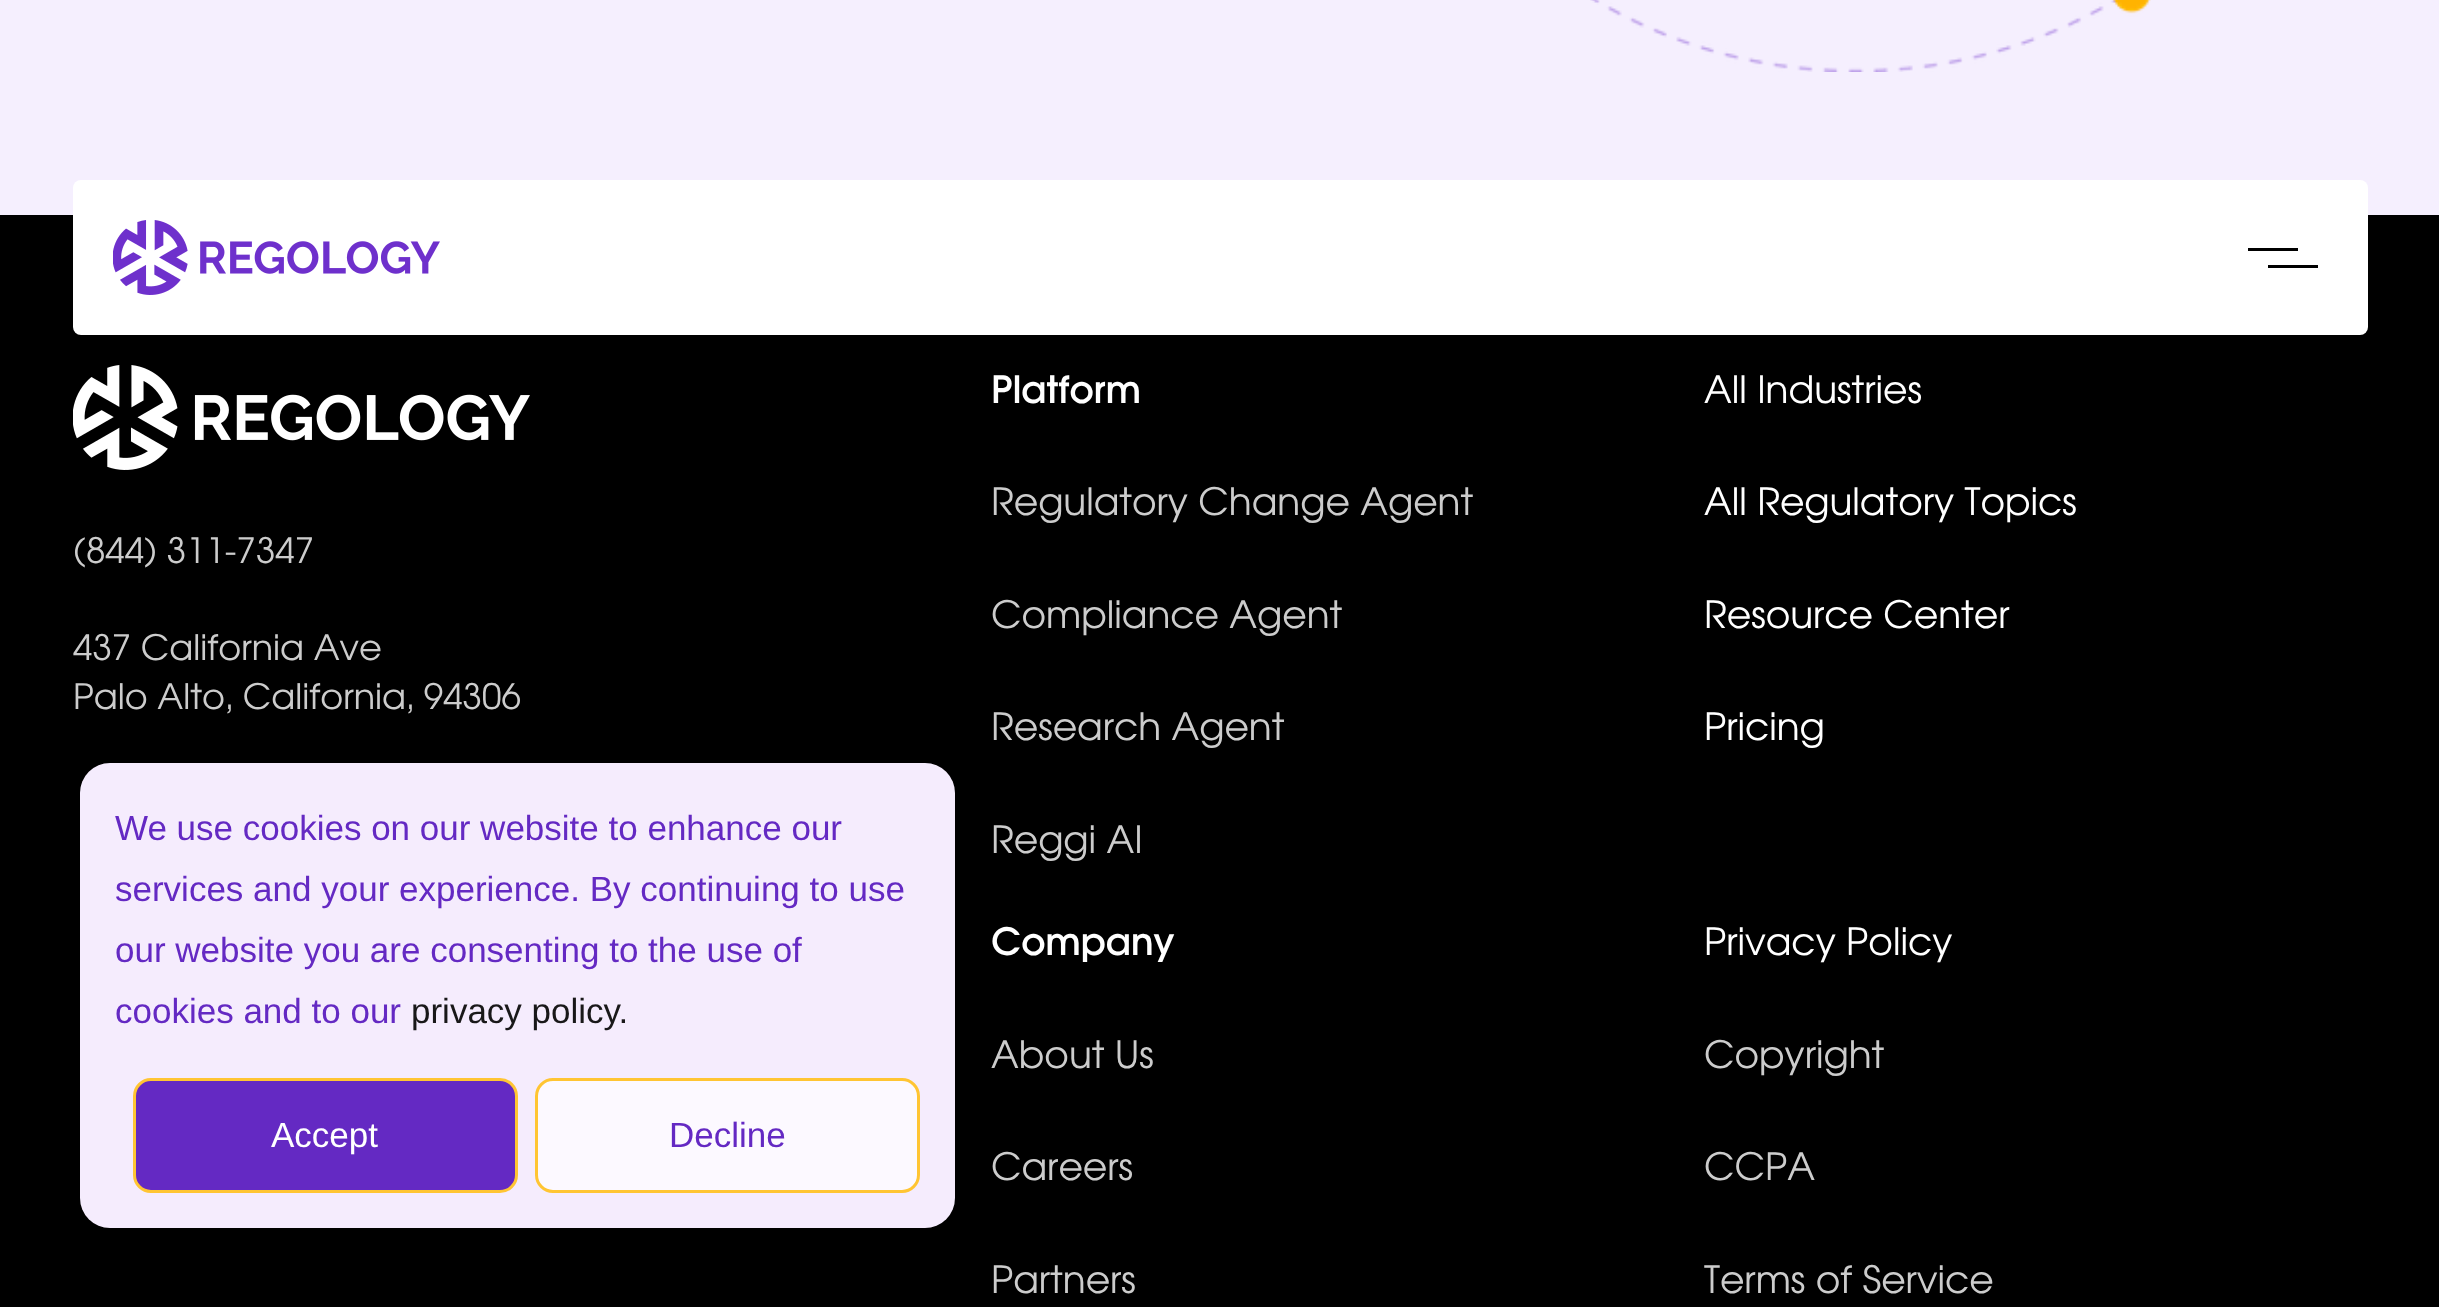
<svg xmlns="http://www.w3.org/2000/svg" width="2439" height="1307">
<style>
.a{font:35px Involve;fill:#ccc}
.b{font:600 37.5px Involve;fill:#fff}
.c{font:37.5px Involve;fill:#ccc}
.d{font:37.5px Involve;fill:#fff}
.e{font:35px Liberation Sans;fill:#6429c3}
.f{font:35px Liberation Sans;fill:#191819}
.g{font:35px Liberation Sans;fill:#fff}
</style>
<rect width="100%" height="100%" fill="#f5effe"/>
<image href="1.png" x="1590" y="0" width="561" height="72"/>
<path fill="#000" d="M0 215h2439v1092H0z"/>
<rect fill="#fff" x="73" y="180" width="2295" height="155" rx="8"/>
<image href="2.png" x="113" y="220" width="327" height="75"/>
<path fill="#000" d="M2248 248h50v3H2248z"/>
<path fill="#000" d="M2268 265h50v3H2268z"/>
<image href="3.png" x="73" y="365" width="457" height="105"/>
<rect fill="#f5ecfd" x="80" y="763" width="875" height="465" rx="30"/>
<rect fill="#6429c3" stroke="#ffc533" stroke-width="3" x="134.5" y="1079.5" width="382" height="112" rx="16.5"/>
<rect fill="#fcf9ff" stroke="#ffc533" stroke-width="3" x="536.5" y="1079.5" width="382" height="112" rx="16.5"/>
<text class="a" x="73" y="563">(844) 311-7347</text>
<text class="a" x="73" y="660">437 California Ave</text>
<text class="a" x="73" y="709">Palo Alto, California, 94306</text>
<text class="b" x="991" y="403">Platform</text>
<text class="c" x="991" y="515">Regulatory Change Agent</text>
<text class="c" x="991" y="628">Compliance Agent</text>
<text class="c" x="991" y="740">Research Agent</text>
<text class="c" x="991" y="853">Reggi AI</text>
<text class="d" x="1704" y="403">All Industries</text>
<text class="d" x="1704" y="515">All Regulatory Topics</text>
<text class="d" x="1704" y="628">Resource Center</text>
<text class="d" x="1704" y="740">Pricing</text>
<text class="b" x="991" y="955">Company</text>
<text class="c" x="991" y="1068">About Us</text>
<text class="c" x="991" y="1180">Careers</text>
<text class="c" x="991" y="1293">Partners</text>
<text class="d" x="1704" y="955">Privacy Policy</text>
<text class="c" x="1704" y="1068">Copyright</text>
<text class="c" x="1704" y="1180">CCPA</text>
<text class="c" x="1704" y="1293">Terms of Service</text>
<text class="e" x="115" y="840">We use cookies on our website to enhance our</text>
<text class="e" x="115" y="901">services and your experience. By continuing to use</text>
<text class="e" x="115" y="962">our website you are consenting to the use of</text>
<text class="e" x="115" y="1023">cookies and to our</text>
<text class="f" x="411" y="1023">privacy policy.</text>
<text class="g" x="271" y="1147">Accept</text>
<text class="e" x="669" y="1147">Decline</text>
</svg>
